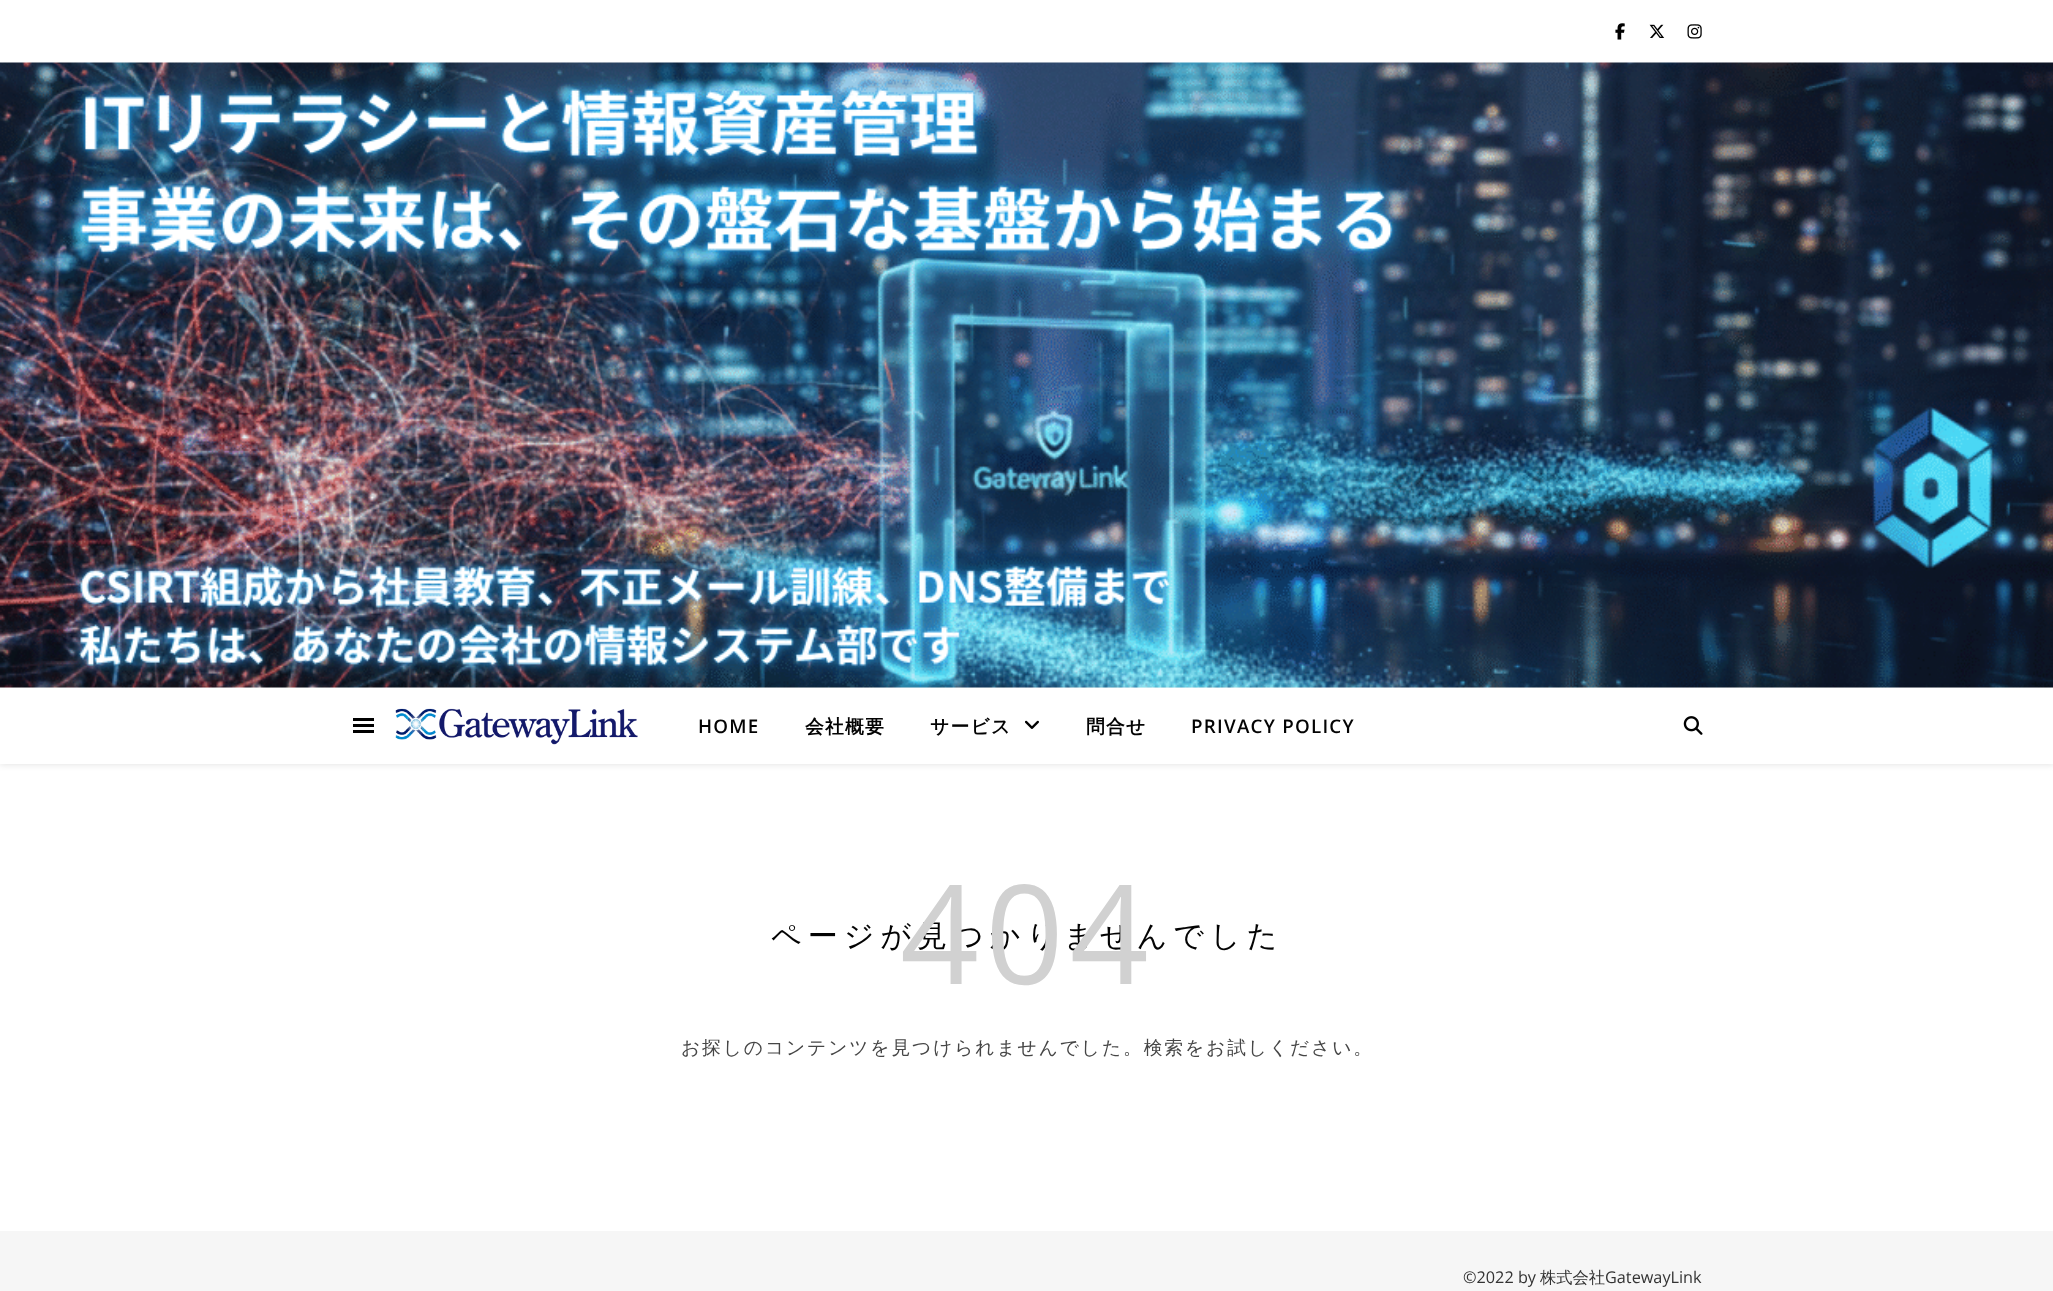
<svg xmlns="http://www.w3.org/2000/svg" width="2053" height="1291">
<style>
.a{font:600 18.75px Open Sans;letter-spacing:1.25px;fill:#030303}
.b{font:bold 18.75px WenQuanYi Zen Hei;letter-spacing:1.25px;fill:#030303}
.c{font:500 30px WenQuanYi Zen Hei;letter-spacing:6px;fill:#030303}
.d{font:138px Open Sans;letter-spacing:6px;fill:#d1d1d1}
.e{font:500 18.75px WenQuanYi Zen Hei;letter-spacing:1.9px;fill:#464646}
.f{font:16.25px Open Sans;fill:#333}
.g{font:500 16.25px WenQuanYi Zen Hei;fill:#333}
</style>
<rect width="100%" height="100%" fill="#fff"/>
<image href="1.png" x="1615" y="23" width="10" height="17"/>
<image href="2.png" x="1649" y="24" width="16" height="14"/>
<image href="3.png" x="1687" y="24" width="15" height="15"/>
<image href="4.png" x="0" y="62" width="2053" height="626"/>
<path fill="#0000001a" filter="blur(3px)" d="M0 689h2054v76H0z"/>
<path fill="#fff" d="M0 688h2053v76H0z"/>
<path fill="#000" d="M353 718h21v3H353z"/>
<path fill="#000" d="M353 724h21v3H353z"/>
<path fill="#000" d="M353 730h21v3H353z"/>
<image href="5.png" x="395" y="708" width="243" height="37"/>
<image href="6.png" x="1025" y="720" width="14" height="9"/>
<image href="7.png" x="1683" y="716" width="20" height="19"/>
<path fill="#f6f6f6" d="M0 1231h2053v60H0z"/>
<text class="a" x="698" y="733">HOME</text>
<text class="b" x="805" y="733">会社概要</text>
<text class="b" x="930" y="733">サービス</text>
<text class="b" x="1086" y="733">問合せ</text>
<text class="a" x="1191" y="733">PRIVACY POLICY</text>
<text class="c" x="771" y="946">ページが見つかりませんでした</text>
<text class="d" x="900" y="984">404</text>
<text class="e" x="681" y="1054">お探しのコンテンツを見つけられませんでした。検索をお試しください。</text>
<text class="f" x="1463" y="1283">©2022 by</text>
<text class="g" x="1540" y="1283">株式会社</text>
<text class="f" x="1605" y="1283">GatewayLink</text>
</svg>
